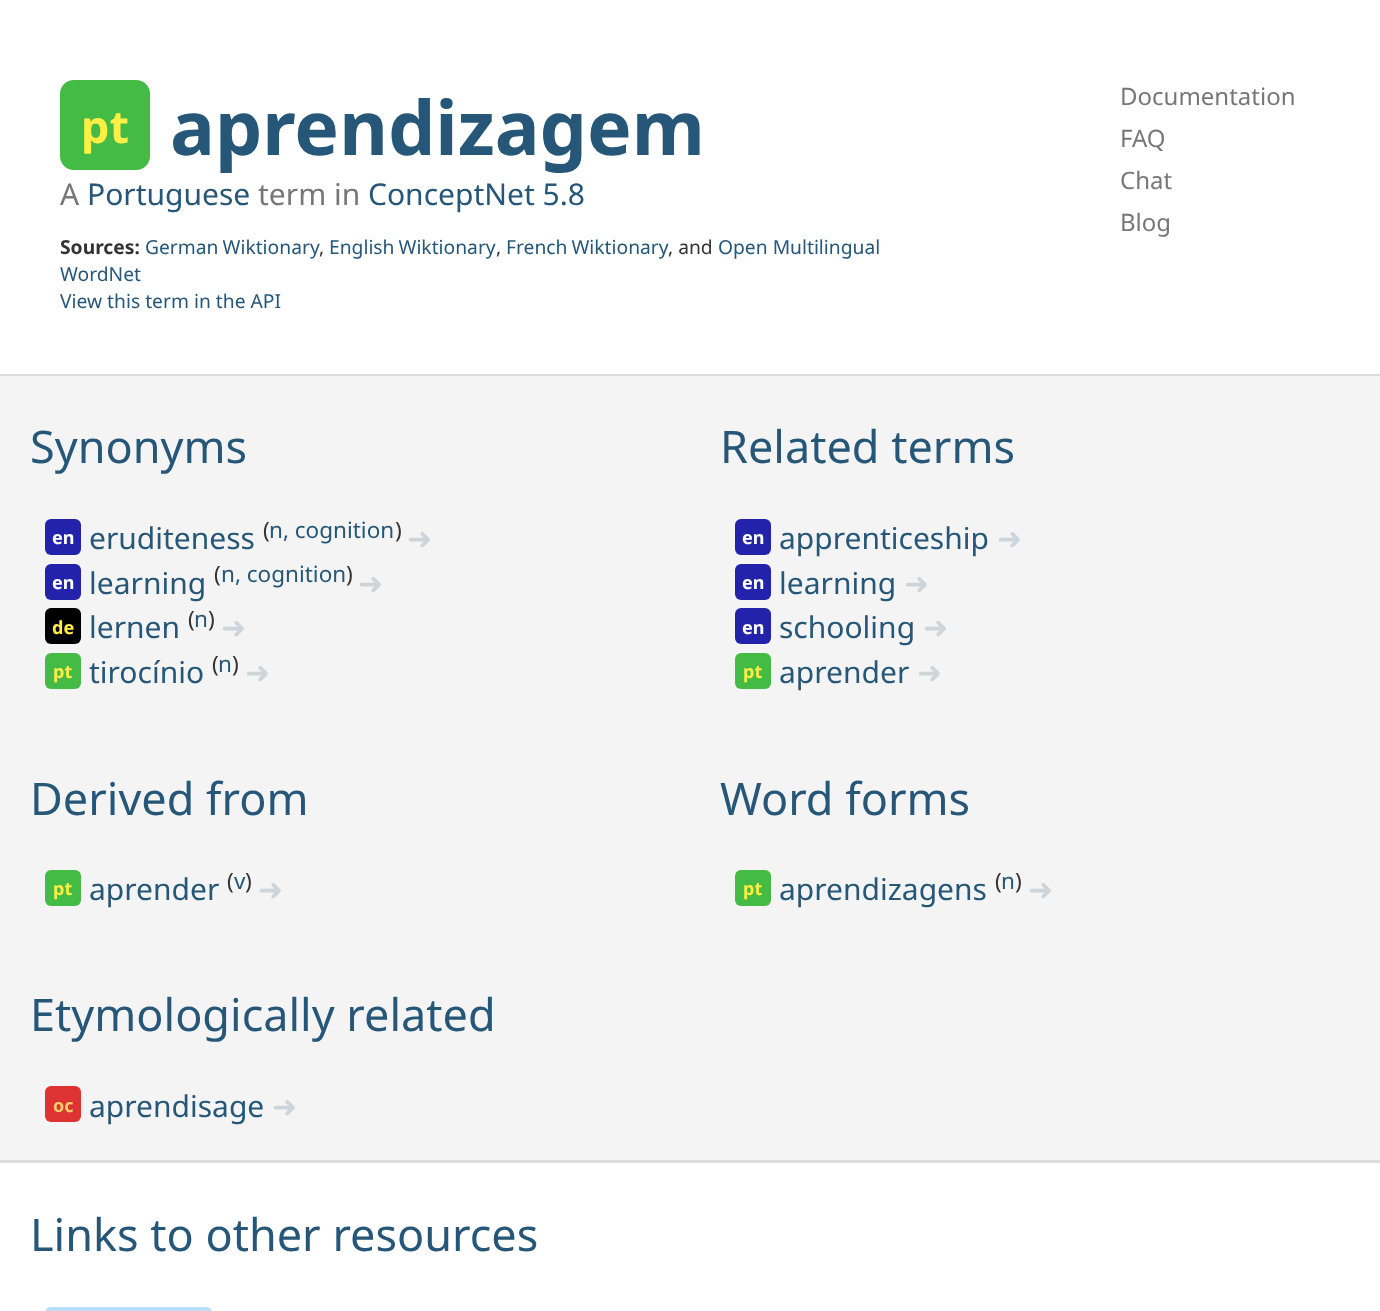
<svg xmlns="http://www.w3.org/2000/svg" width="1380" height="1311">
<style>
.a{font:bold 45px Noto Sans;fill:#fe4}
.b{font:bold 75px Noto Sans;fill:#265778}
.c{font:30px Noto Sans;fill:#777}
.d{font:30px Noto Sans;fill:#265778}
.e{font:bold 19.25px Noto Sans;fill:#333}
.f{font:19.25px Noto Sans;fill:#265778}
.g{font:19.25px Noto Sans;fill:#333}
.h{font:24px Noto Sans;fill:#777}
.i{font:45px Noto Sans;fill:#265778}
.j{font:bold 18px Noto Sans;fill:#fff}
.k{font:22.5px Noto Sans;fill:#333}
.l{font:22.5px Noto Sans;fill:#265778}
.m{font:30px DejaVu Sans;fill:#cbd5db}
.n{font:bold 18px Noto Sans;fill:#fe4}
.o{font:bold 18px Noto Sans;fill:#fc6}
</style>
<rect width="100%" height="100%" fill="#fff"/>
<rect fill="#4b4" x="60" y="80" width="90" height="90" rx="14"/>
<path fill="#f4f4f4" d="M0 376h1380v784H0z"/>
<path fill="#ddd" d="M0 374h1380v2H0z"/>
<path fill="#ddd" d="M0 1160h1380v3H0z"/>
<rect fill="#22a" x="45" y="519" width="36" height="36" rx="6"/>
<rect fill="#22a" x="45" y="564" width="36" height="36" rx="6"/>
<rect fill="#000" x="45" y="608" width="36" height="36" rx="6"/>
<rect fill="#4b4" x="45" y="653" width="36" height="36" rx="6"/>
<rect fill="#22a" x="735" y="519" width="36" height="36" rx="6"/>
<rect fill="#22a" x="735" y="564" width="36" height="36" rx="6"/>
<rect fill="#22a" x="735" y="608" width="36" height="36" rx="6"/>
<rect fill="#4b4" x="735" y="653" width="36" height="36" rx="6"/>
<rect fill="#4b4" x="45" y="870" width="36" height="36" rx="6"/>
<rect fill="#4b4" x="735" y="870" width="36" height="36" rx="6"/>
<rect fill="#d33" x="45" y="1086" width="36" height="36" rx="6"/>
<rect fill="#bdf" x="45" y="1307" width="167" height="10" rx="6"/>
<text class="a" x="81" y="143">pt</text>
<text class="b" x="170" y="155">aprendizagem</text>
<text class="c" x="60" y="205">A</text>
<text class="d" x="87" y="205">Portuguese</text>
<text class="c" x="258" y="205">term in</text>
<text class="d" x="368" y="205">ConceptNet 5.8</text>
<text class="e" x="60" y="254">Sources:</text>
<text class="f" x="145" y="254" word-spacing="-1">German Wiktionary</text>
<text class="g" x="319" y="254">,</text>
<text class="f" x="329" y="254" word-spacing="-1">English Wiktionary</text>
<text class="g" x="496" y="254">,</text>
<text class="f" x="506" y="254" word-spacing="-1">French Wiktionary</text>
<text class="g" x="668" y="254">, and</text>
<text class="f" x="718" y="254">Open Multilingual</text>
<text class="f" x="60" y="281">WordNet</text>
<text class="f" x="60" y="308">View this term in the API</text>
<text class="h" x="1120" y="105">Documentation</text>
<text class="h" x="1120" y="147">FAQ</text>
<text class="h" x="1120" y="189">Chat</text>
<text class="h" x="1120" y="231">Blog</text>
<text class="i" x="30" y="463">Synonyms</text>
<text class="j" x="52" y="544">en</text>
<text class="d" x="89" y="549">eruditeness</text>
<text class="k" x="263" y="538">(</text>
<text class="l" x="269" y="538">n, cognition</text>
<text class="k" x="395" y="538">)</text>
<text class="m" x="407" y="549">➜</text>
<text class="j" x="52" y="589">en</text>
<text class="d" x="89" y="594">learning</text>
<text class="k" x="214" y="582">(</text>
<text class="l" x="221" y="582">n, cognition</text>
<text class="k" x="346" y="582">)</text>
<text class="m" x="358" y="594">➜</text>
<text class="n" x="52" y="634">de</text>
<text class="d" x="89" y="638">lernen</text>
<text class="k" x="188" y="627">(</text>
<text class="l" x="194" y="627">n</text>
<text class="k" x="208" y="627">)</text>
<text class="m" x="221" y="638">➜</text>
<text class="n" x="53" y="678">pt</text>
<text class="d" x="89" y="683">tirocínio</text>
<text class="k" x="212" y="672">(</text>
<text class="l" x="218" y="672">n</text>
<text class="k" x="232" y="672">)</text>
<text class="m" x="245" y="683">➜</text>
<text class="i" x="720" y="463">Related terms</text>
<text class="j" x="742" y="544">en</text>
<text class="d" x="779" y="549">apprenticeship</text>
<text class="m" x="997" y="549">➜</text>
<text class="j" x="742" y="589">en</text>
<text class="d" x="779" y="594">learning</text>
<text class="m" x="904" y="594">➜</text>
<text class="j" x="742" y="634">en</text>
<text class="d" x="779" y="638">schooling</text>
<text class="m" x="923" y="638">➜</text>
<text class="n" x="743" y="678">pt</text>
<text class="d" x="779" y="683">aprender</text>
<text class="m" x="917" y="683">➜</text>
<text class="i" x="30" y="815">Derived from</text>
<text class="n" x="53" y="895">pt</text>
<text class="d" x="89" y="900">aprender</text>
<text class="k" x="227" y="889">(</text>
<text class="l" x="234" y="889">v</text>
<text class="k" x="245" y="889">)</text>
<text class="m" x="258" y="900">➜</text>
<text class="i" x="720" y="815">Word forms</text>
<text class="n" x="743" y="895">pt</text>
<text class="d" x="779" y="900">aprendizagens</text>
<text class="k" x="995" y="889">(</text>
<text class="l" x="1001" y="889">n</text>
<text class="k" x="1015" y="889">)</text>
<text class="m" x="1028" y="900">➜</text>
<text class="i" x="30" y="1031">Etymologically related</text>
<text class="o" x="53" y="1112">oc</text>
<text class="d" x="89" y="1117">aprendisage</text>
<text class="m" x="272" y="1117">➜</text>
<text class="i" x="30" y="1251">Links to other resources</text>
</svg>
